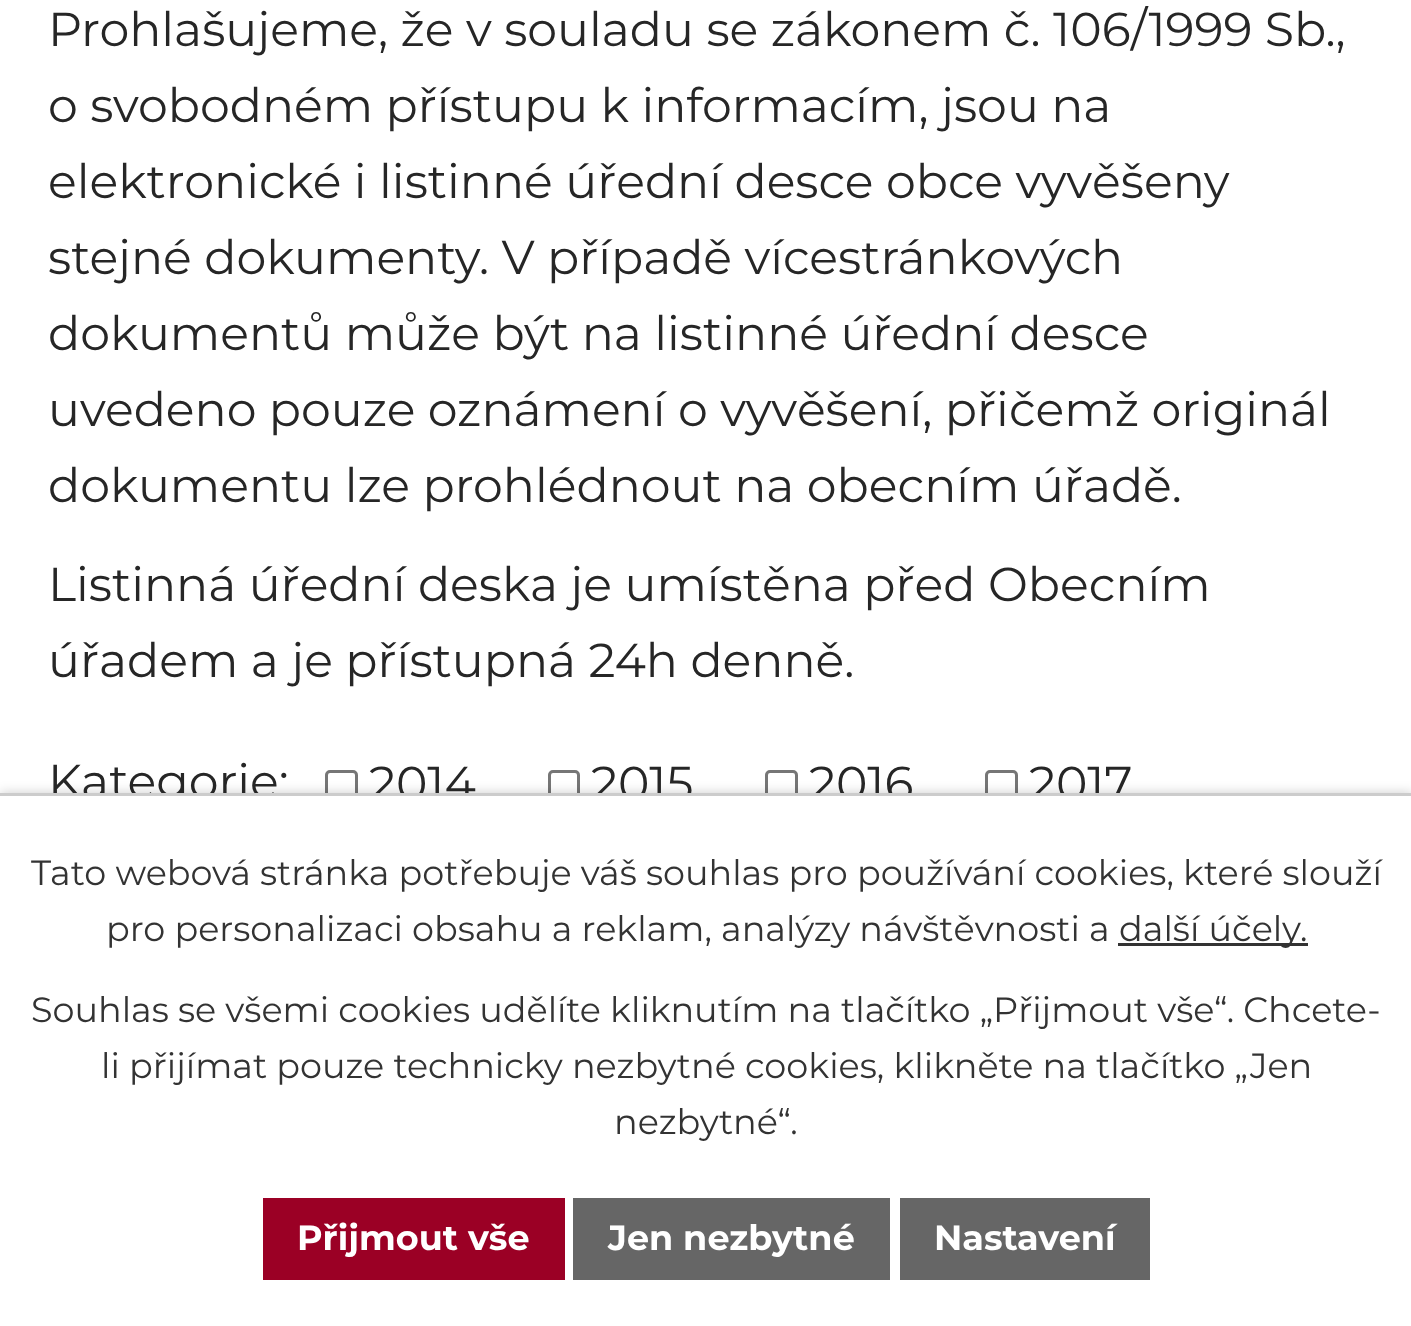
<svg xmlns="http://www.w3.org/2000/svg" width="1411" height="1326">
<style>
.a{font:47.5px Montserrat;fill:#262626}
.b{font:35px Montserrat;fill:#333}
.c{font:bold 35px Montserrat;fill:#fff}
</style>
<rect width="100%" height="100%" fill="#fff"/>
<rect fill="none" stroke="#767676" stroke-width="3" x="326.5" y="771.5" width="30" height="30" rx="3.5"/>
<rect fill="none" stroke="#767676" stroke-width="3" x="549.5" y="771.5" width="29" height="30" rx="3.5"/>
<rect fill="none" stroke="#767676" stroke-width="3" x="766.5" y="771.5" width="30" height="30" rx="3.5"/>
<rect fill="none" stroke="#767676" stroke-width="3" x="986.5" y="771.5" width="30" height="30" rx="3.5"/>
<path fill="#00000033" filter="blur(6px)" d="M0 793h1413v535H0z"/>
<text class="a" x="48" y="46">Prohlašujeme, že v souladu se zákonem č. 106/1999 Sb.,</text>
<text class="a" x="48" y="122">o svobodném přístupu k informacím, jsou na</text>
<text class="a" x="48" y="198">elektronické i listinné úřední desce obce vyvěšeny</text>
<text class="a" x="48" y="274">stejné dokumenty. V případě vícestránkových</text>
<text class="a" x="48" y="350">dokumentů může být na listinné úřední desce</text>
<text class="a" x="48" y="426">uvedeno pouze oznámení o vyvěšení, přičemž originál</text>
<text class="a" x="48" y="502">dokumentu lze prohlédnout na obecním úřadě.</text>
<text class="a" x="48" y="601">Listinná úřední deska je umístěna před Obecním</text>
<text class="a" x="48" y="677">úřadem a je přístupná 24h denně.</text>
<text class="a" x="48" y="798">Kategorie:</text>
<text class="a" x="369" y="800">2014</text>
<text class="a" x="591" y="800">2015</text>
<text class="a" x="809" y="800">2016</text>
<text class="a" x="1029" y="800">2017</text>
<path fill="#fff" d="M0 796h1411v530H0z"/>
<path fill="#ccc" d="M0 793h1411v3H0z"/>
<text class="b" x="31" y="885">Tato webová stránka potřebuje váš souhlas pro používání cookies, které slouží</text>
<text class="b" x="106" y="941">pro personalizaci obsahu a reklam, analýzy návštěvnosti a</text>
<path fill="#333" d="M1118 943h190v3H1118z"/>
<text class="b" x="1119" y="941">další účely.</text>
<text class="b" x="31" y="1022">Souhlas se všemi cookies udělíte kliknutím na tlačítko „Přijmout vše“. Chcete-</text>
<text class="b" x="101" y="1078">li přijímat pouze technicky nezbytné cookies, klikněte na tlačítko „Jen</text>
<text class="b" x="614" y="1134">nezbytné“.</text>
<path fill="#9b0025" d="M263 1198h302v82H263z"/>
<text class="c" x="297" y="1250">Přijmout vše</text>
<path fill="#666" d="M573 1198h317v82H573z"/>
<text class="c" x="608" y="1250">Jen nezbytné</text>
<path fill="#666" d="M900 1198h250v82H900z"/>
<text class="c" x="934" y="1250">Nastavení</text>
</svg>
